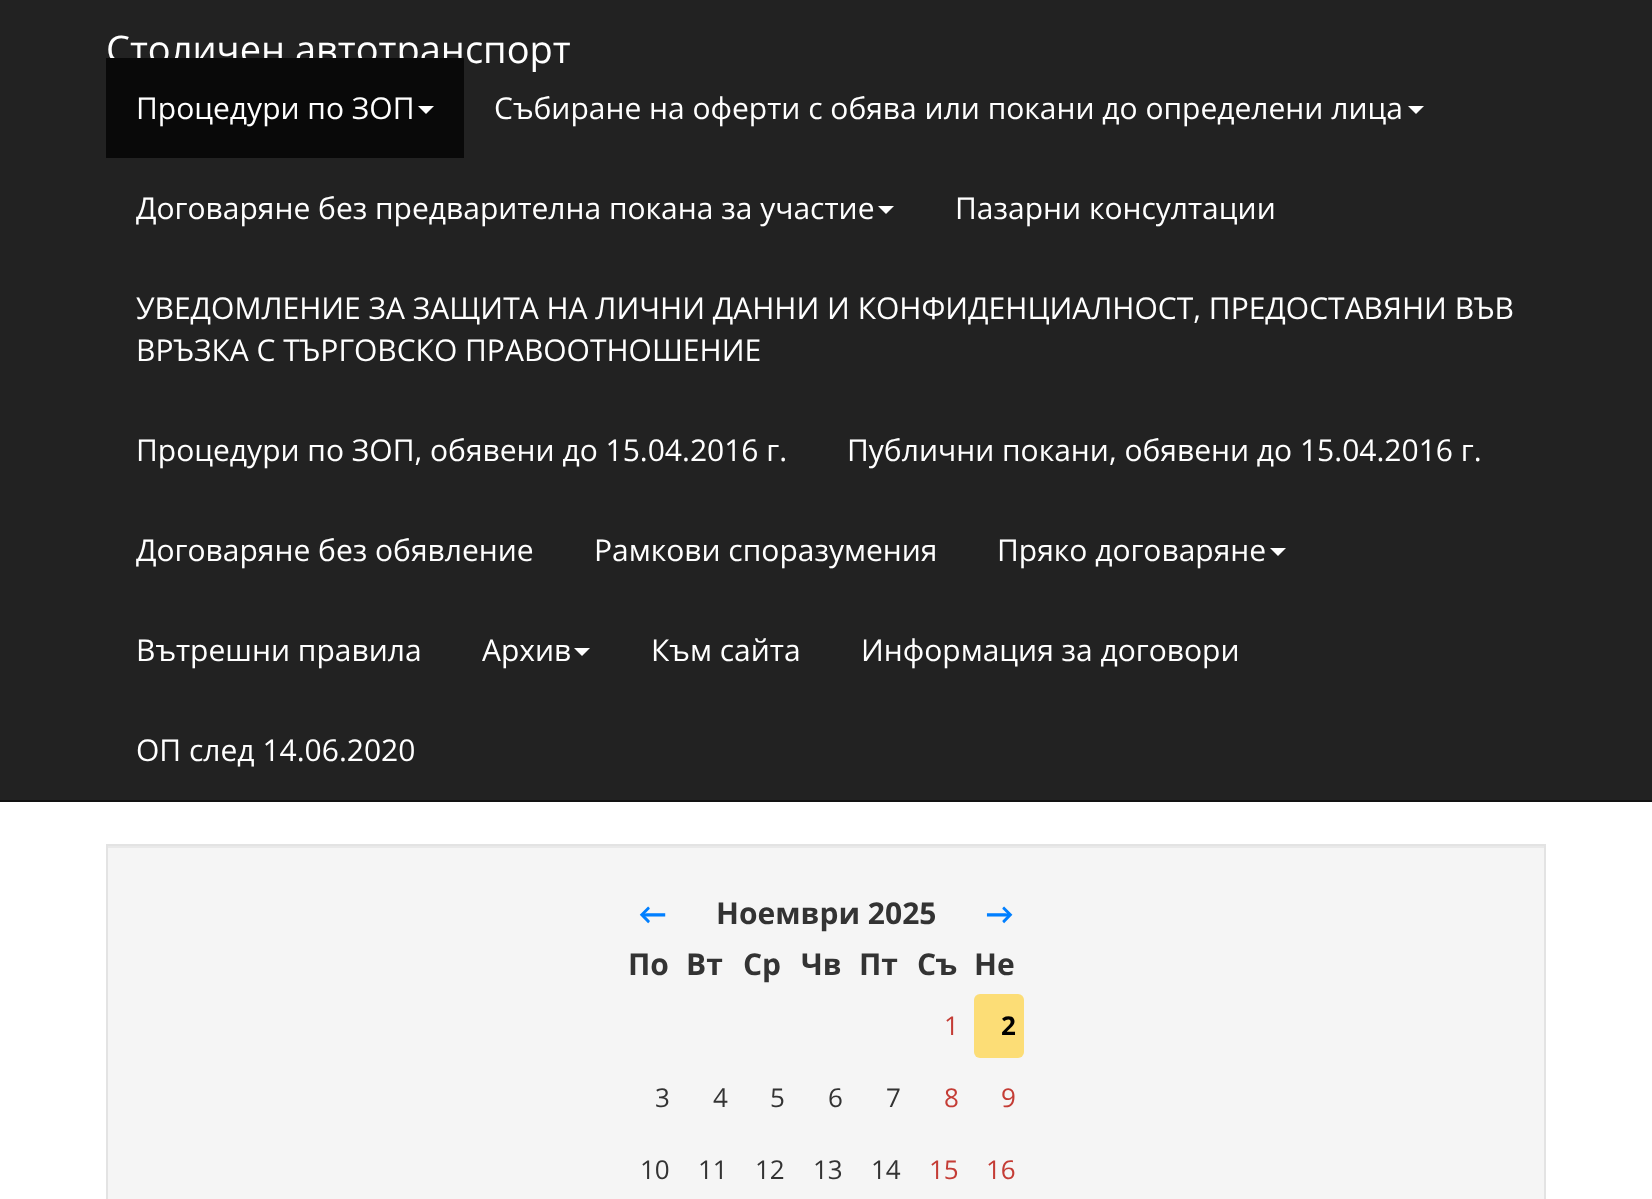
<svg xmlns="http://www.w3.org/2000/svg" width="1652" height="1199">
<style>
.a{font:38px Open Sans;fill:#fff}
.b{font:30px Open Sans;fill:#fff}
.c{font:bold 30px Carlito;fill:#007fff}
.d{font:bold 30px Open Sans;fill:#333}
.e{font:26px Open Sans;fill:#c43c35}
.f{font:bold 26px Open Sans;fill:#000}
.g{font:26px Open Sans;fill:#333}
</style>
<rect width="100%" height="100%" fill="#fff"/>
<path fill="#222" d="M0 0h1652v800H0z"/>
<path fill="#121212" d="M0 800h1652v2H0z"/>
<path fill="#fff" d="M1408 106h16l-8 8z"/>
<path fill="#fff" d="M878 206h16l-8 8z"/>
<path fill="#fff" d="M1270 548h16l-8 8z"/>
<path fill="#fff" d="M574 648h16l-8 8z"/>
<path fill="#f5f5f5" d="M108 848h1436v351H108z"/>
<path fill="#e9e9e9" d="M108 846h1436v2H108z"/>
<path fill="none" stroke="#e3e3e3" stroke-width="2" d="M107 845h1438v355H107z"/>
<rect fill="#fcdd76" x="974" y="994" width="50" height="64" rx="6"/>
<text class="a" x="106" y="63">Столичен автотранспорт</text>
<path fill="#090909" d="M106 58h358v100H106z"/>
<text class="b" x="136" y="119">Процедури по ЗОП</text>
<path fill="#fff" d="M418 106h16l-8 8z"/>
<text class="b" x="494" y="119">Събиране на оферти с обява или покани до определени лица</text>
<text class="b" x="136" y="219">Договаряне без предварителна покана за участие</text>
<text class="b" x="955" y="219">Пазарни консултации</text>
<text class="b" x="136" y="319">УВЕДОМЛЕНИЕ ЗА ЗАЩИТА НА ЛИЧНИ ДАННИ И КОНФИДЕНЦИАЛНОСТ, ПРЕДОСТАВЯНИ ВЪВ</text>
<text class="b" x="136" y="361">ВРЪЗКА С ТЪРГОВСКО ПРАВООТНОШЕНИЕ</text>
<text class="b" x="136" y="461">Процедури по ЗОП, обявени до 15.04.2016 г.</text>
<text class="b" x="847" y="461">Публични покани, обявени до 15.04.2016 г.</text>
<text class="b" x="136" y="561">Договаряне без обявление</text>
<text class="b" x="594" y="561">Рамкови споразумения</text>
<text class="b" x="997" y="561">Пряко договаряне</text>
<text class="b" x="136" y="661">Вътрешни правила</text>
<text class="b" x="482" y="661">Архив</text>
<text class="b" x="651" y="661">Към сайта</text>
<text class="b" x="861" y="661">Информация за договори</text>
<text class="b" x="136" y="761">ОП след 14.06.2020</text>
<text class="c" x="639" y="924">←</text>
<text class="d" x="716" y="924">Ноември 2025</text>
<text class="c" x="986" y="924">→</text>
<text class="d" x="628" y="975">По</text>
<text class="d" x="686" y="975">Вт</text>
<text class="d" x="743" y="975">Ср</text>
<text class="d" x="801" y="975">Чв</text>
<text class="d" x="859" y="975">Пт</text>
<text class="d" x="917" y="975">Съ</text>
<text class="d" x="974" y="975">Не</text>
<text class="e" x="944" y="1035">1</text>
<text class="f" x="1001" y="1035">2</text>
<text class="g" x="655" y="1107">3</text>
<text class="g" x="713" y="1107">4</text>
<text class="g" x="770" y="1107">5</text>
<text class="g" x="828" y="1107">6</text>
<text class="g" x="886" y="1107">7</text>
<text class="e" x="944" y="1107">8</text>
<text class="e" x="1001" y="1107">9</text>
<text class="g" x="640" y="1179">10</text>
<text class="g" x="698" y="1179">11</text>
<text class="g" x="755" y="1179">12</text>
<text class="g" x="813" y="1179">13</text>
<text class="g" x="871" y="1179">14</text>
<text class="e" x="929" y="1179">15</text>
<text class="e" x="986" y="1179">16</text>
</svg>
